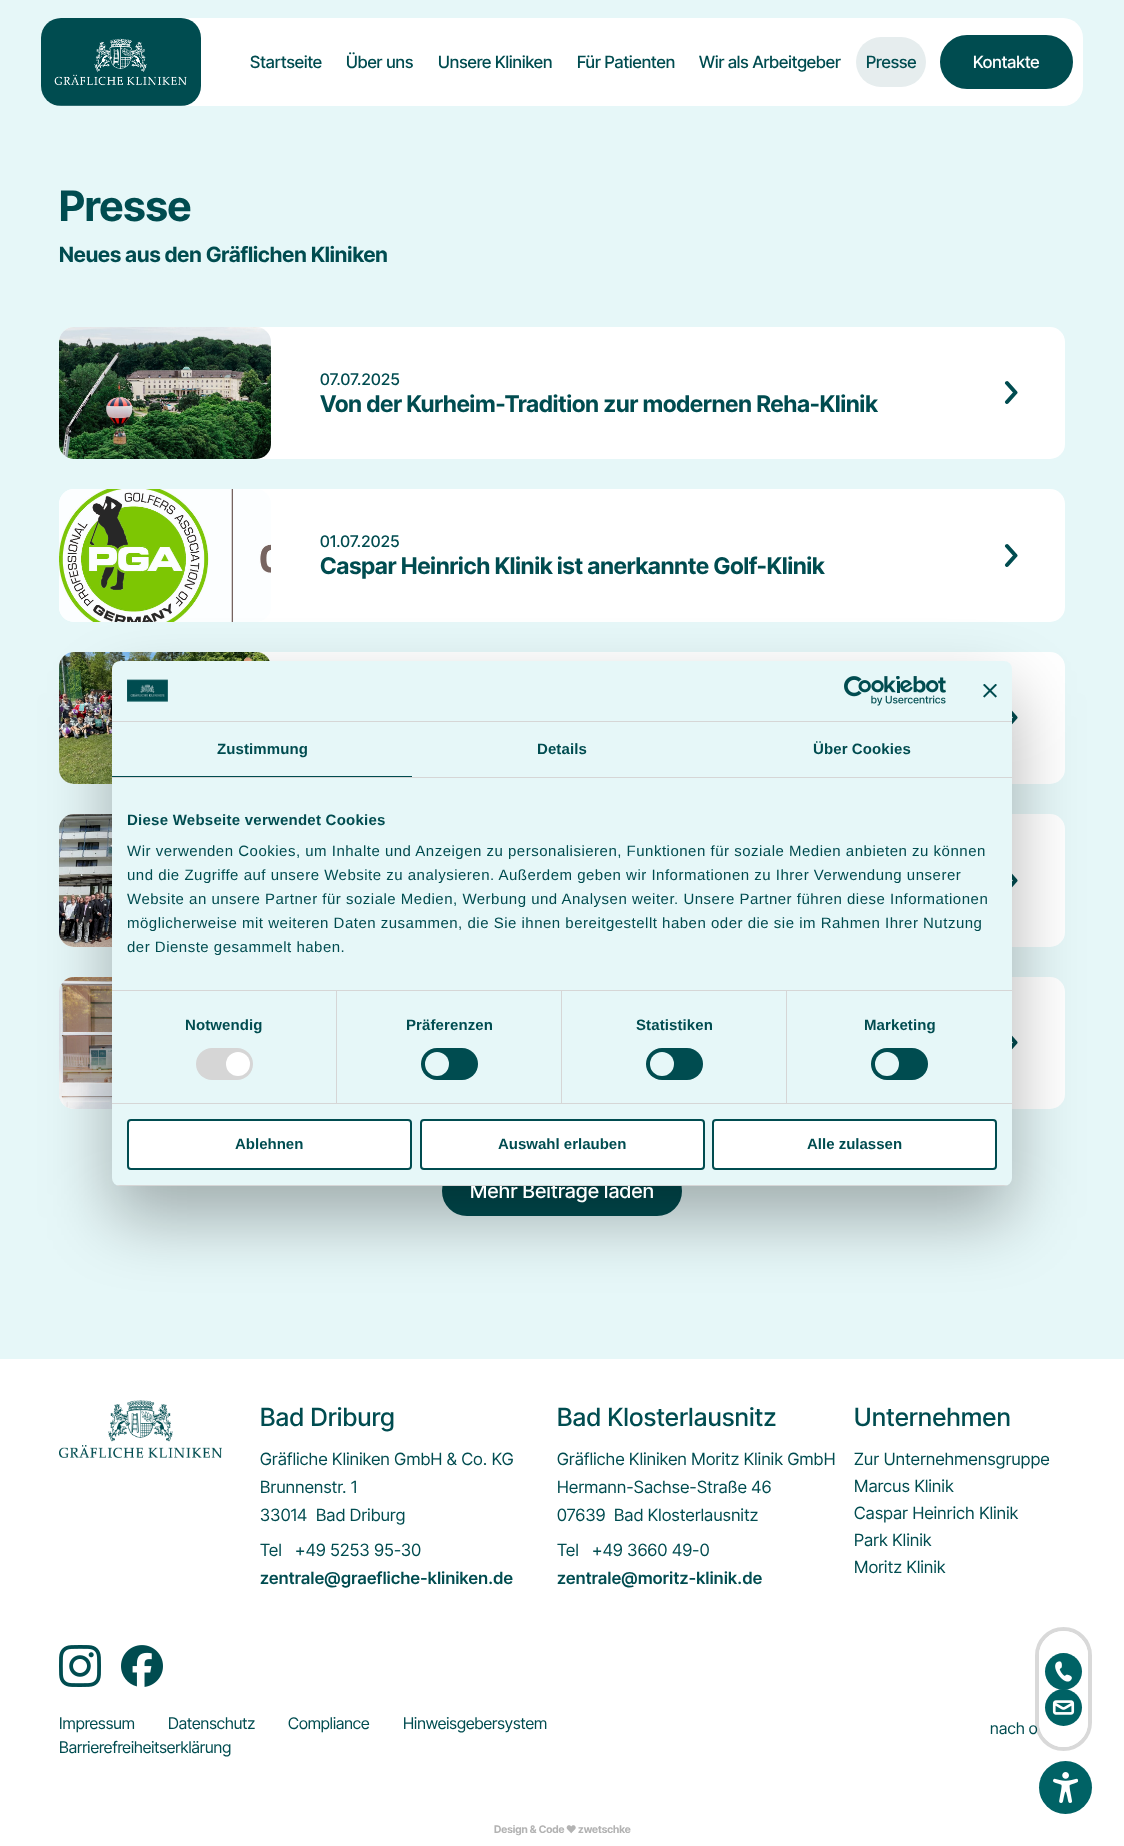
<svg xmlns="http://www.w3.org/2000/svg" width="1124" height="1846">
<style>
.a{font:500 16.9px Inter Tight;fill:#004c50}
.b{font:500 16.9px Inter Tight;fill:#fff}
.c{font:bold 42px Inter Tight;fill:#004c50}
.d{font:bold 21.1px Inter Tight;fill:#004c50}
.e{font:500 16px Inter Tight;letter-spacing:0.35px;fill:#004c50}
.f{font:bold 23px Inter Tight;fill:#004c50}
.g{font:500 20px Inter Tight;letter-spacing:0.4px;fill:#fff}
.h{font:bold 15px Liberation Sans;letter-spacing:0.1px;fill:#004c50}
.i{font:bold 15px Liberation Sans;letter-spacing:0.25px;fill:#004c50}
.j{font:15px Liberation Sans;letter-spacing:0.5px;fill:#004c50}
.k{font:bold 15px Liberation Sans;fill:#004c50}
.l{font:500 25px Inter Tight;letter-spacing:0.5px;fill:#004c50}
.m{font:16.9px Inter Tight;letter-spacing:0.35px;fill:#004c50}
.n{font:600 16.9px Inter Tight;letter-spacing:0.35px;fill:#004c50}
.o{font:16px Inter Tight;fill:#004c50}
.p{font:16px Inter Tight;letter-spacing:0.25px;fill:#004c50}
.q{font:bold 10.5px Inter Tight;fill:#b3b3b3}
.r{font:bold 10.5px 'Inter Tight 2';fill:#b3b3b3}
</style>
<defs>
<clipPath id="clip1"><rect x="112" y="661" width="900" height="525" rx="8"/></clipPath>
</defs>
<rect width="100%" height="100%" fill="#e6f7f8"/>
<rect fill="#fff" x="41" y="18" width="1042" height="88" rx="20"/>
<image href="1.png" x="41" y="18" width="160" height="88"/>
<rect fill="#e6edee" x="856" y="37" width="70" height="50" rx="25"/>
<rect fill="#004c50" stroke="#004c50" stroke-width="2" x="941" y="36" width="131" height="52" rx="26"/>
<rect fill="#fff" x="59" y="327" width="1006" height="132" rx="15"/>
<image href="2.png" x="59" y="327" width="212" height="132"/>
<path fill="none" stroke="#004c50" stroke-width="4" stroke-linecap="round" stroke-linejoin="round" d="M1007 383l8.5 9.5l-8.5 9.5"/>
<rect fill="#fff" x="59" y="489" width="1006" height="133" rx="15"/>
<image href="3.png" x="59" y="489" width="212" height="133"/>
<path fill="none" stroke="#004c50" stroke-width="4" stroke-linecap="round" stroke-linejoin="round" d="M1007 546l8.5 9.5l-8.5 9.5"/>
<rect fill="#fff" x="59" y="652" width="1006" height="132" rx="15"/>
<image href="4.png" x="59" y="652" width="211" height="132"/>
<path fill="none" stroke="#004c50" stroke-width="4" stroke-linecap="round" stroke-linejoin="round" d="M1007 708l8.5 9.5l-8.5 9.5"/>
<rect fill="#fff" x="59" y="814" width="1006" height="133" rx="15"/>
<image href="5.png" x="59" y="814" width="53" height="133"/>
<path fill="none" stroke="#004c50" stroke-width="4" stroke-linecap="round" stroke-linejoin="round" d="M1007 871l8.5 9.5l-8.5 9.5"/>
<rect fill="#fff" x="59" y="977" width="1006" height="132" rx="15"/>
<image href="6.png" x="59" y="977" width="53" height="132"/>
<path fill="none" stroke="#004c50" stroke-width="4" stroke-linecap="round" stroke-linejoin="round" d="M1007 1033l8.5 9.5l-8.5 9.5"/>
<rect fill="#004c50" stroke="#004c50" stroke-width="2" x="443" y="1167" width="238" height="48" rx="24"/>
<rect fill="#0000004d" filter="blur(34px)" x="112" y="693" width="900" height="525" rx="8"/>
<path fill="#fff" d="M0 1359h1124v487H0z"/>
<image href="10.png" x="59" y="1400" width="163" height="58"/>
<image href="11.png" x="59" y="1645" width="42" height="42"/>
<image href="12.png" x="121" y="1645" width="42" height="42"/>
<circle fill="#006265" cx="1065.5" cy="1787.5" r="26.5"/>
<image href="15.png" x="1053" y="1772" width="25" height="31"/>
<text class="a" x="250" y="68">Startseite</text>
<text class="a" x="346" y="68">Über uns</text>
<text class="a" x="438" y="68">Unsere Kliniken</text>
<text class="a" x="577" y="68">Für Patienten</text>
<text class="a" x="699" y="68">Wir als Arbeitgeber</text>
<text class="a" x="866" y="68">Presse</text>
<text class="b" x="973" y="68">Kontakte</text>
<text class="c" x="59" y="221">Presse</text>
<text class="d" x="59" y="262">Neues aus den Gräflichen Kliniken</text>
<text class="e" x="320" y="385">07.07.2025</text>
<text class="f" x="320" y="412">Von der Kurheim-Tradition zur modernen Reha-Klinik</text>
<text class="e" x="320" y="547">01.07.2025</text>
<text class="f" x="320" y="574">Caspar Heinrich Klinik ist anerkannte Golf-Klinik</text>
<text class="g" x="470" y="1198">Mehr Beiträge laden</text>
<rect fill="#e6f7f8" x="112" y="661" width="900" height="525" rx="8"/>
<path fill="#d6d6d6" d="M112 721h900v1H112z"/>
<image href="7.png" x="127" y="679" width="41" height="23"/>
<image href="8.png" x="844" y="676" width="102" height="30"/>
<image href="9.png" x="983" y="684" width="14" height="14"/>
<path fill="#d6d6d6" d="M112 777h900v1H112z"/>
<path fill="#004c50" d="M112 776h300v1H112z"/>
<text class="h" x="217" y="754">Zustimmung</text>
<text class="h" x="537" y="754">Details</text>
<text class="h" x="813" y="754">Über Cookies</text>
<path fill="#d6d6d6" d="M112 990h900v1H112z"/>
<text class="i" x="127" y="825">Diese Webseite verwendet Cookies</text>
<text class="j" x="127" y="856">Wir verwenden Cookies, um Inhalte und Anzeigen zu personalisieren, Funktionen für soziale Medien anbieten zu können</text>
<text class="j" x="127" y="880">und die Zugriffe auf unsere Website zu analysieren. Außerdem geben wir Informationen zu Ihrer Verwendung unserer</text>
<text class="j" x="127" y="904">Website an unsere Partner für soziale Medien, Werbung und Analysen weiter. Unsere Partner führen diese Informationen</text>
<text class="j" x="127" y="928">möglicherweise mit weiteren Daten zusammen, die Sie ihnen bereitgestellt haben oder die sie im Rahmen Ihrer Nutzung</text>
<text class="j" x="127" y="952">der Dienste gesammelt haben.</text>
<path fill="#d6d6d6" d="M112 1103h900v1H112z"/>
<path fill="#d6d6d6" d="M336 991h1v112H336z"/>
<text class="h" x="185" y="1030">Notwendig</text>
<rect fill="#d6d6d6" x="196" y="1048" width="57" height="32" rx="16"/>
<circle fill="#fff" cx="238" cy="1064" r="12"/>
<path fill="#d6d6d6" d="M561 991h1v112H561z"/>
<text class="h" x="406" y="1030">Präferenzen</text>
<rect fill="#004c50" x="421" y="1048" width="57" height="32" rx="16"/>
<circle fill="#e6f7f8" cx="437" cy="1064" r="12"/>
<path fill="#d6d6d6" d="M786 991h1v112H786z"/>
<text class="h" x="636" y="1030">Statistiken</text>
<rect fill="#004c50" x="646" y="1048" width="57" height="32" rx="16"/>
<circle fill="#e6f7f8" cx="662" cy="1064" r="12"/>
<text class="h" x="864" y="1030">Marketing</text>
<rect fill="#004c50" x="871" y="1048" width="57" height="32" rx="16"/>
<circle fill="#e6f7f8" cx="887" cy="1064" r="12"/>
<g clip-path="url(#clip1)">
<path fill="#d6d6d6" d="M112 1185h900v1H112z"/>
</g>
<rect fill="#fff" stroke="#004c50" stroke-width="2" x="128" y="1120" width="283" height="49" rx="3"/>
<text class="k" x="235" y="1149">Ablehnen</text>
<rect fill="#fff" stroke="#004c50" stroke-width="2" x="421" y="1120" width="283" height="49" rx="3"/>
<text class="k" x="498" y="1149">Auswahl erlauben</text>
<rect fill="#fff" stroke="#004c50" stroke-width="2" x="713" y="1120" width="283" height="49" rx="3"/>
<text class="k" x="807" y="1149">Alle zulassen</text>
<text class="l" x="260" y="1426">Bad Driburg</text>
<text class="m" x="260" y="1465">Gräfliche Kliniken GmbH &amp; Co. KG</text>
<text class="m" x="260" y="1493">Brunnenstr. 1</text>
<text class="m" x="260" y="1521">33014</text>
<text class="m" x="316" y="1521">Bad Driburg</text>
<text class="m" x="260" y="1556">Tel</text>
<text class="m" x="295" y="1556">+49 5253 95-30</text>
<text class="n" x="260" y="1584">zentrale@graefliche-kliniken.de</text>
<text class="l" x="557" y="1426">Bad Klosterlausnitz</text>
<text class="m" x="557" y="1465">Gräfliche Kliniken Moritz Klinik GmbH</text>
<text class="m" x="557" y="1493">Hermann-Sachse-Straße 46</text>
<text class="m" x="557" y="1521">07639</text>
<text class="m" x="614" y="1521">Bad Klosterlausnitz</text>
<text class="m" x="557" y="1556">Tel</text>
<text class="m" x="592" y="1556">+49 3660 49-0</text>
<text class="n" x="557" y="1584">zentrale@moritz-klinik.de</text>
<text class="l" x="854" y="1426">Unternehmen</text>
<text class="m" x="854" y="1465">Zur Unternehmensgruppe</text>
<text class="m" x="854" y="1492">Marcus Klinik</text>
<text class="m" x="854" y="1519">Caspar Heinrich Klinik</text>
<text class="m" x="854" y="1546">Park Klinik</text>
<text class="m" x="854" y="1573">Moritz Klinik</text>
<text class="o" x="59" y="1729">Impressum</text>
<text class="o" x="168" y="1729">Datenschutz</text>
<text class="o" x="288" y="1729">Compliance</text>
<text class="o" x="403" y="1729">Hinweisgebersystem</text>
<text class="o" x="59" y="1753">Barrierefreiheitserklärung</text>
<text class="p" x="990" y="1734">nach o</text>
<rect fill="none" stroke="#00000026" stroke-width="4" x="1037" y="1629" width="53" height="120" rx="26.5"/>
<rect fill="#fff" x="1039" y="1631" width="49" height="116" rx="24.5"/>
<circle fill="#006265" cx="1063.5" cy="1671.5" r="18.5"/>
<image href="13.png" x="1055" y="1661" width="17" height="21"/>
<circle fill="#006265" cx="1063.5" cy="1707.5" r="18.5"/>
<image href="14.png" x="1052" y="1700" width="23" height="15"/>
<text class="q" x="494" y="1833">Design &amp; Code</text>
<text class="r" x="566" y="1833">❤</text>
<text class="q" x="578" y="1833">zwetschke</text>
</svg>
